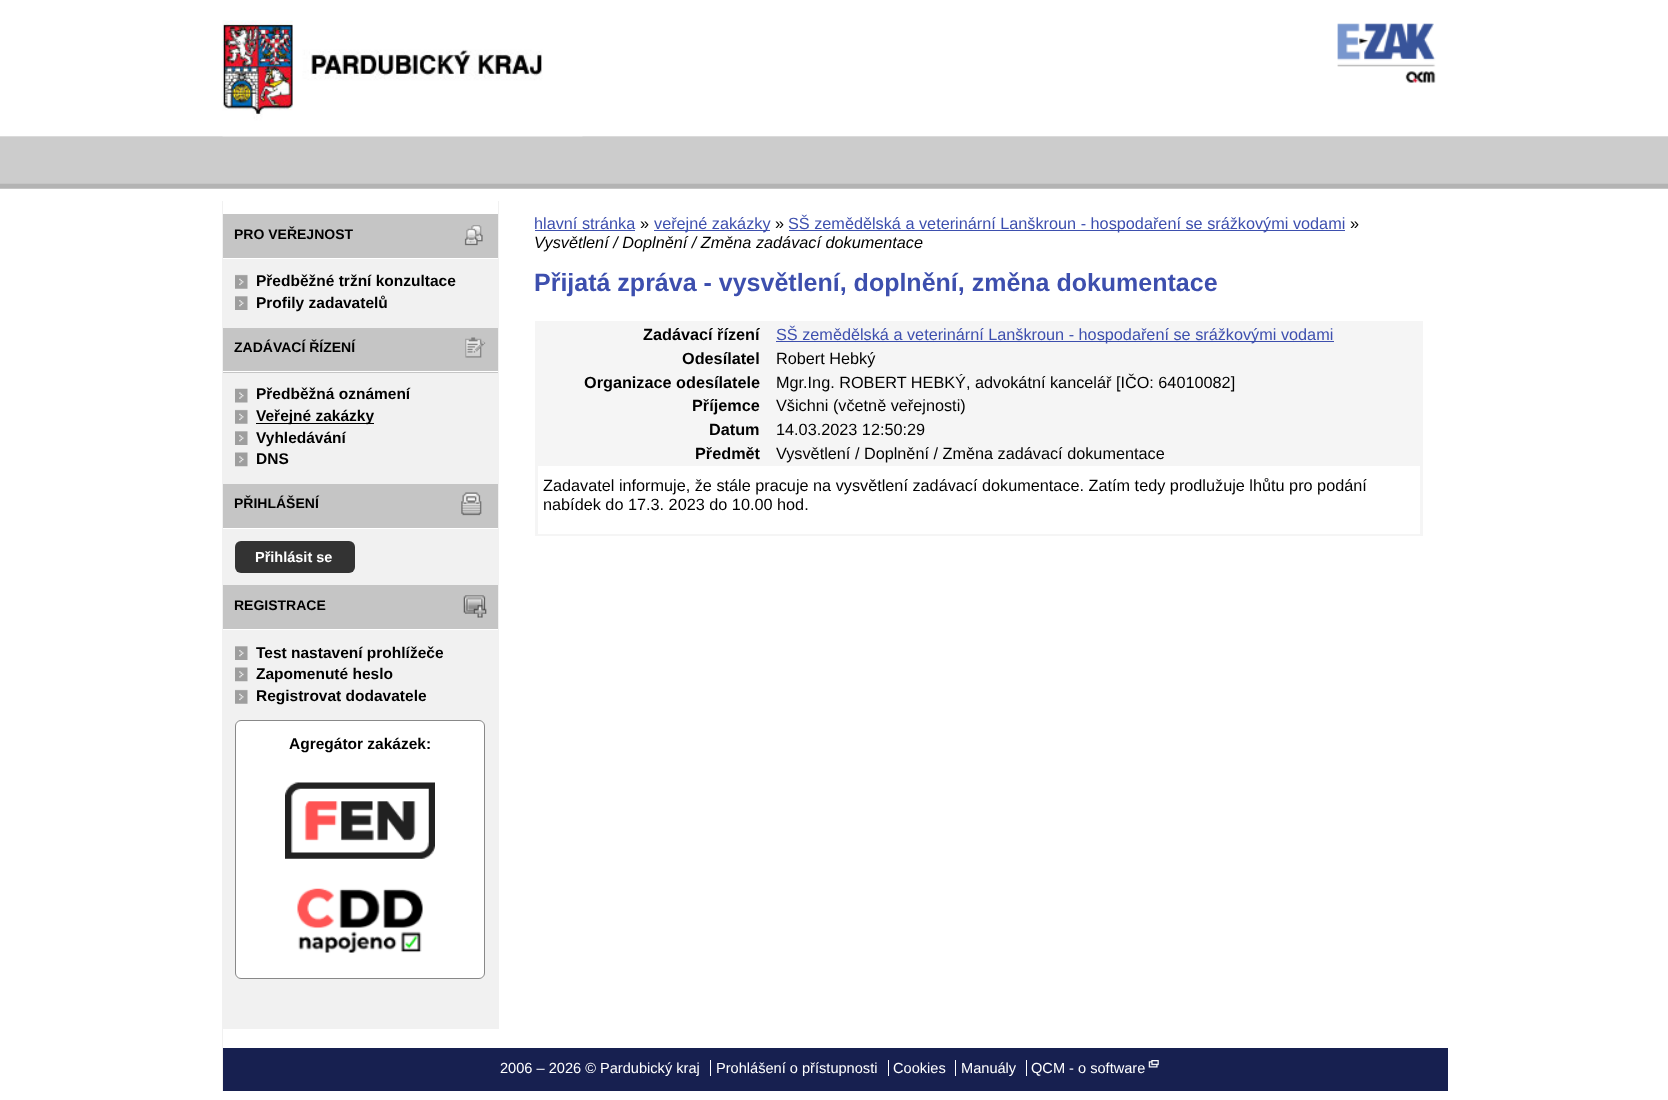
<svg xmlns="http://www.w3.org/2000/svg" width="1668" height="1100">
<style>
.a{font:bold 14px Liberation Sans;fill:#000}
.b{font:bold 15.5px Liberation Sans;fill:#000}
.c{font:bold 14.5px Liberation Sans;fill:#fff}
.d{font:16.25px Liberation Sans;fill:#3d4fae}
.e{font:16.25px Liberation Sans;fill:#000}
.f{font:italic 16.25px Liberation Sans;fill:#000}
.g{font:bold 25px Liberation Sans;fill:#3d4fae}
.h{font:bold 16.25px Liberation Sans;fill:#000}
.i{font:14.6px Liberation Sans;fill:#fff}
</style>
<rect width="100%" height="100%" fill="#fff"/>
<image href="1.png" x="0" y="136" width="1668" height="53"/>
<image href="2.png" x="222" y="20" width="361" height="117"/>
<image href="3.png" x="1337" y="23" width="99" height="60"/>
<path fill="#f1f1f1" d="M222 201h277v890H222z"/>
<path fill="#fff" d="M223 201h275v13H223z"/>
<path fill="#c5c5c5" d="M223 214h275v44H223z"/>
<image href="4.png" x="464" y="225" width="19" height="21"/>
<path fill="#fff" d="M223 258h275v1H223z"/>
<image href="5.png" x="235" y="274" width="13" height="15"/>
<image href="6.png" x="235" y="296" width="13" height="14"/>
<path fill="#c5c5c5" d="M223 328h275v45H223z"/>
<image href="7.png" x="465" y="337" width="21" height="21"/>
<path fill="#fff" d="M223 371h275v1H223z"/>
<image href="8.png" x="235" y="388" width="13" height="15"/>
<image href="5.png" x="235" y="409" width="13" height="15"/>
<path fill="#000" d="M256 423h118v1H256z"/>
<image href="9.png" x="235" y="431" width="13" height="14"/>
<image href="10.png" x="235" y="452" width="13" height="15"/>
<path fill="#c5c5c5" d="M223 484h275v44H223z"/>
<image href="11.png" x="461" y="492" width="21" height="24"/>
<path fill="#fff" d="M223 528h275v1H223z"/>
<rect fill="#333" x="235" y="541" width="120" height="32" rx="6"/>
<path fill="#c5c5c5" d="M223 585h275v44H223z"/>
<image href="12.png" x="463" y="595" width="24" height="23"/>
<path fill="#fff" d="M223 629h275v1H223z"/>
<image href="9.png" x="235" y="646" width="13" height="14"/>
<image href="10.png" x="235" y="667" width="13" height="15"/>
<image href="5.png" x="235" y="689" width="13" height="15"/>
<rect fill="#fff" stroke="#888" x="235.5" y="720.5" width="249" height="258" rx="5.5"/>
<image href="13.png" x="285" y="782" width="150" height="77"/>
<image href="14.png" x="297" y="888" width="126" height="65"/>
<path fill="#3d4fae" d="M535 230h100v1H535z"/>
<path fill="#3d4fae" d="M654 230h116v1H654z"/>
<path fill="#3d4fae" d="M789 230h556v1H789z"/>
<path fill="#f5f5f5" d="M535 321h888v215H535z"/>
<path fill="#3d4fae" d="M776 341h558v1H776z"/>
<path fill="#fff" d="M538 466h882v68H538z"/>
<path fill="#172050" d="M223 1048h1225v43H223z"/>
<path fill="#fff" d="M223 1029h276v19H223z"/>
<path fill="#fff" d="M710 1060h1v16H710z"/>
<path fill="#fff" d="M888 1060h1v16H888z"/>
<path fill="#fff" d="M955 1060h1v16H955z"/>
<path fill="#fff" d="M1026 1060h1v16H1026z"/>
<image href="15.png" x="1148" y="1060" width="11" height="8"/>
<text class="a" x="234" y="239">PRO VEŘEJNOST</text>
<text class="b" x="256" y="286">Předběžné tržní konzultace</text>
<text class="b" x="256" y="308">Profily zadavatelů</text>
<text class="a" x="234" y="352">ZADÁVACÍ ŘÍZENÍ</text>
<text class="b" x="256" y="399">Předběžná oznámení</text>
<text class="b" x="256" y="421">Veřejné zakázky</text>
<text class="b" x="256" y="443">Vyhledávání</text>
<text class="b" x="256" y="464">DNS</text>
<text class="a" x="234" y="508">PŘIHLÁŠENÍ</text>
<text class="c" x="255" y="562">Přihlásit se</text>
<text class="a" x="234" y="610">REGISTRACE</text>
<text class="b" x="256" y="658">Test nastavení prohlížeče</text>
<text class="b" x="256" y="679">Zapomenuté heslo</text>
<text class="b" x="256" y="701">Registrovat dodavatele</text>
<text class="b" x="289" y="749">Agregátor zakázek:</text>
<text class="d" x="534" y="229">hlavní stránka</text>
<text class="e" x="640" y="229">»</text>
<text class="d" x="654" y="229">veřejné zakázky</text>
<text class="e" x="775" y="229">»</text>
<text class="d" x="788" y="229">SŠ zemědělská a veterinární Lanškroun - hospodaření se srážkovými vodami</text>
<text class="e" x="1350" y="229">»</text>
<text class="f" x="534" y="248">Vysvětlení / Doplnění / Změna zadávací dokumentace</text>
<text class="g" x="534" y="291">Přijatá zpráva - vysvětlení, doplnění, změna dokumentace</text>
<text class="h" x="643" y="340">Zadávací řízení</text>
<text class="d" x="776" y="340">SŠ zemědělská a veterinární Lanškroun - hospodaření se srážkovými vodami</text>
<text class="h" x="682" y="364">Odesílatel</text>
<text class="e" x="776" y="364">Robert Hebký</text>
<text class="h" x="584" y="388">Organizace odesílatele</text>
<text class="e" x="776" y="388">Mgr.Ing. ROBERT HEBKÝ, advokátní kancelář [IČO: 64010082]</text>
<text class="h" x="692" y="411">Příjemce</text>
<text class="e" x="776" y="411">Všichni (včetně veřejnosti)</text>
<text class="h" x="709" y="435">Datum</text>
<text class="e" x="776" y="435">14.03.2023 12:50:29</text>
<text class="h" x="695" y="459">Předmět</text>
<text class="e" x="776" y="459">Vysvětlení / Doplnění / Změna zadávací dokumentace</text>
<text class="e" x="543" y="491">Zadavatel informuje, že stále pracuje na vysvětlení zadávací dokumentace. Zatím tedy prodlužuje lhůtu pro podání</text>
<text class="e" x="543" y="510">nabídek do 17.3. 2023 do 10.00 hod.</text>
<text class="i" x="500" y="1073">2006 – 2026 © Pardubický kraj</text>
<text class="i" x="716" y="1073">Prohlášení o přístupnosti</text>
<text class="i" x="893" y="1073">Cookies</text>
<text class="i" x="961" y="1073">Manuály</text>
<text class="i" x="1031" y="1073">QCM - o software</text>
</svg>
